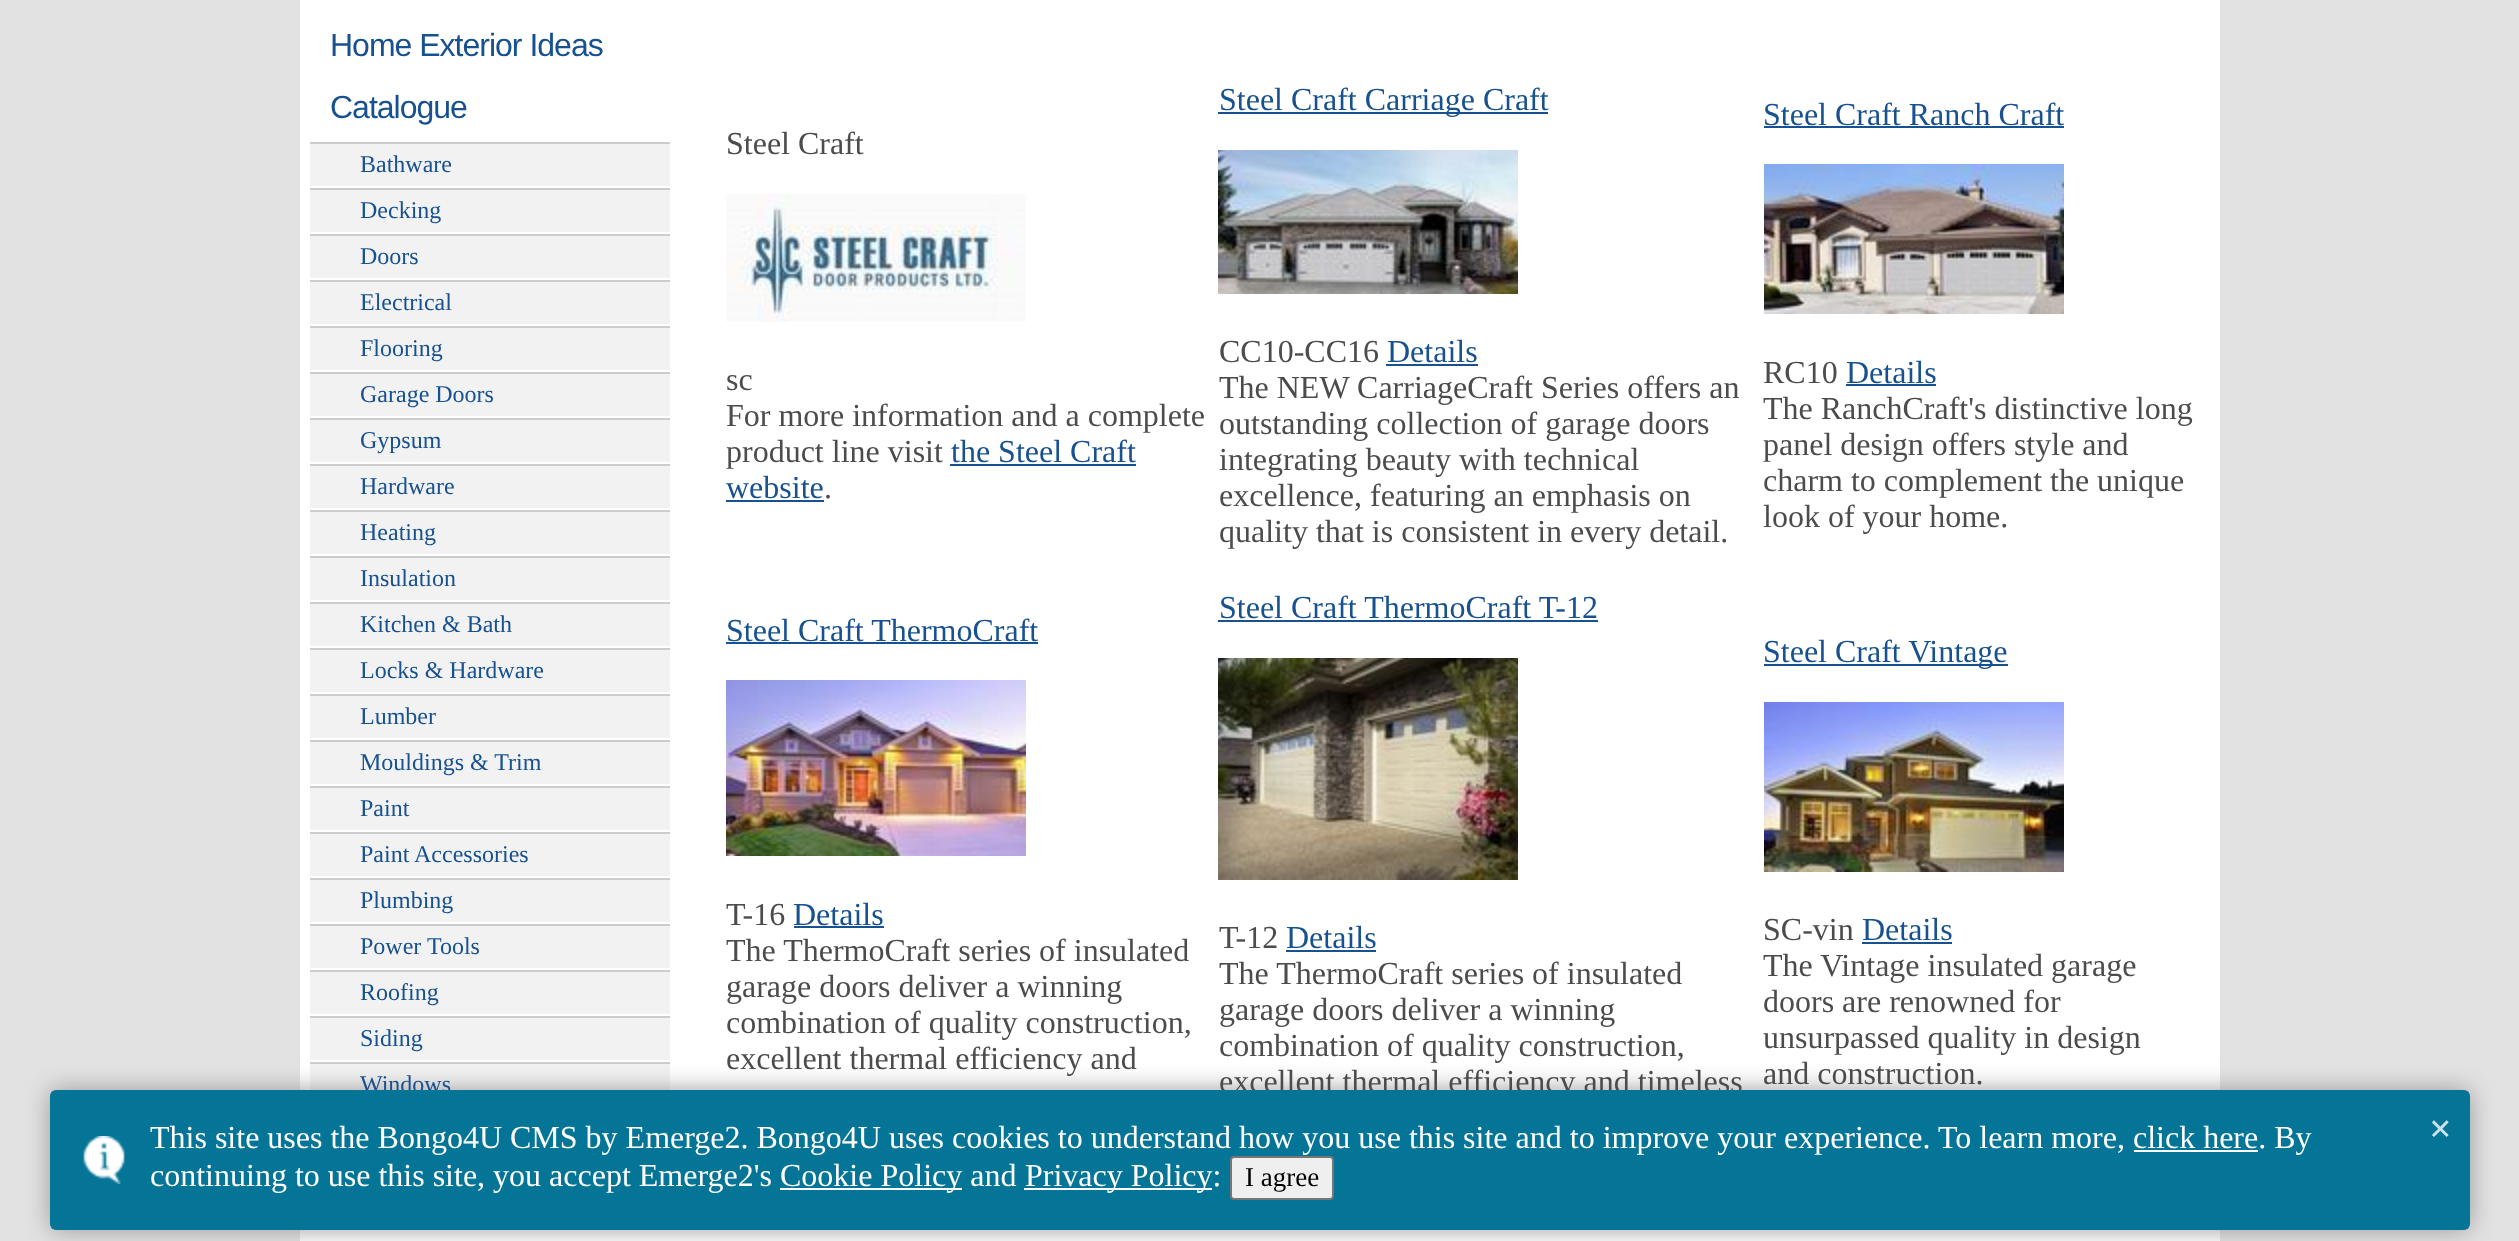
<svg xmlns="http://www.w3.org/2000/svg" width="2519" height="1241">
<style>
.a{font:32px Liberation Sans;letter-spacing:-1px;fill:#175190}
.b{font:24px Liberation Serif;fill:#175190}
.c{font:32px Liberation Serif;fill:#4c4c4c}
.d{font:32px Liberation Serif;fill:#175190}
.e{font:32px Liberation Serif;fill:#fff}
.f{font:27px Liberation Serif;fill:#000}
.g{font:bold 40px Liberation Serif;fill:#cde3ea}
</style>
<rect width="100%" height="100%" fill="#e2e2e2"/>
<path fill="#fff" d="M300 0h1920v1241H300z"/>
<path fill="#f2f2f2" d="M310 144h360v42H310z"/>
<path fill="#ccc" d="M310 142h360v2H310z"/>
<path fill="#f2f2f2" d="M310 190h360v42H310z"/>
<path fill="#ccc" d="M310 188h360v2H310z"/>
<path fill="#f2f2f2" d="M310 236h360v42H310z"/>
<path fill="#ccc" d="M310 234h360v2H310z"/>
<path fill="#f2f2f2" d="M310 282h360v42H310z"/>
<path fill="#ccc" d="M310 280h360v2H310z"/>
<path fill="#f2f2f2" d="M310 328h360v42H310z"/>
<path fill="#ccc" d="M310 326h360v2H310z"/>
<path fill="#f2f2f2" d="M310 374h360v42H310z"/>
<path fill="#ccc" d="M310 372h360v2H310z"/>
<path fill="#f2f2f2" d="M310 420h360v42H310z"/>
<path fill="#ccc" d="M310 418h360v2H310z"/>
<path fill="#f2f2f2" d="M310 466h360v42H310z"/>
<path fill="#ccc" d="M310 464h360v2H310z"/>
<path fill="#f2f2f2" d="M310 512h360v42H310z"/>
<path fill="#ccc" d="M310 510h360v2H310z"/>
<path fill="#f2f2f2" d="M310 558h360v42H310z"/>
<path fill="#ccc" d="M310 556h360v2H310z"/>
<path fill="#f2f2f2" d="M310 604h360v42H310z"/>
<path fill="#ccc" d="M310 602h360v2H310z"/>
<path fill="#f2f2f2" d="M310 650h360v42H310z"/>
<path fill="#ccc" d="M310 648h360v2H310z"/>
<path fill="#f2f2f2" d="M310 696h360v42H310z"/>
<path fill="#ccc" d="M310 694h360v2H310z"/>
<path fill="#f2f2f2" d="M310 742h360v42H310z"/>
<path fill="#ccc" d="M310 740h360v2H310z"/>
<path fill="#f2f2f2" d="M310 788h360v42H310z"/>
<path fill="#ccc" d="M310 786h360v2H310z"/>
<path fill="#f2f2f2" d="M310 834h360v42H310z"/>
<path fill="#ccc" d="M310 832h360v2H310z"/>
<path fill="#f2f2f2" d="M310 880h360v42H310z"/>
<path fill="#ccc" d="M310 878h360v2H310z"/>
<path fill="#f2f2f2" d="M310 926h360v42H310z"/>
<path fill="#ccc" d="M310 924h360v2H310z"/>
<path fill="#f2f2f2" d="M310 972h360v42H310z"/>
<path fill="#ccc" d="M310 970h360v2H310z"/>
<path fill="#f2f2f2" d="M310 1018h360v42H310z"/>
<path fill="#ccc" d="M310 1016h360v2H310z"/>
<path fill="#f2f2f2" d="M310 1064h360v26H310z"/>
<path fill="#ccc" d="M310 1062h360v2H310z"/>
<image href="1.png" x="726" y="194" width="300" height="128"/>
<path fill="#175190" d="M950 464h186v2H950z"/>
<path fill="#175190" d="M726 500h98v2H726z"/>
<path fill="#175190" d="M1218 112h330v2H1218z"/>
<image href="2.png" x="1218" y="150" width="300" height="144"/>
<path fill="#175190" d="M1386 364h92v2H1386z"/>
<path fill="#175190" d="M1764 126h300v2H1764z"/>
<image href="3.png" x="1764" y="164" width="300" height="150"/>
<path fill="#175190" d="M1846 384h90v2H1846z"/>
<path fill="#175190" d="M726 642h312v2H726z"/>
<image href="4.png" x="726" y="680" width="300" height="176"/>
<path fill="#175190" d="M794 926h90v2H794z"/>
<path fill="#175190" d="M1218 620h380v2H1218z"/>
<image href="5.png" x="1218" y="658" width="300" height="222"/>
<path fill="#175190" d="M1286 950h90v2H1286z"/>
<path fill="#175190" d="M1764 664h244v2H1764z"/>
<image href="6.png" x="1764" y="702" width="300" height="170"/>
<path fill="#175190" d="M1862 942h90v2H1862z"/>
<rect fill="#999" filter="blur(12px)" x="50" y="1090" width="2420" height="140" rx="6"/>
<text class="a" x="330" y="56">Home Exterior Ideas</text>
<text class="a" x="330" y="118">Catalogue</text>
<text class="b" x="360" y="172">Bathware</text>
<text class="b" x="360" y="218">Decking</text>
<text class="b" x="360" y="264">Doors</text>
<text class="b" x="360" y="310">Electrical</text>
<text class="b" x="360" y="356">Flooring</text>
<text class="b" x="360" y="402">Garage Doors</text>
<text class="b" x="360" y="448">Gypsum</text>
<text class="b" x="360" y="494">Hardware</text>
<text class="b" x="360" y="540">Heating</text>
<text class="b" x="360" y="586">Insulation</text>
<text class="b" x="360" y="632">Kitchen &amp; Bath</text>
<text class="b" x="360" y="678">Locks &amp; Hardware</text>
<text class="b" x="360" y="724">Lumber</text>
<text class="b" x="360" y="770">Mouldings &amp; Trim</text>
<text class="b" x="360" y="816">Paint</text>
<text class="b" x="360" y="862">Paint Accessories</text>
<text class="b" x="360" y="908">Plumbing</text>
<text class="b" x="360" y="954">Power Tools</text>
<text class="b" x="360" y="1000">Roofing</text>
<text class="b" x="360" y="1046">Siding</text>
<text class="b" x="360" y="1092">Windows</text>
<text class="c" x="726" y="154">Steel Craft</text>
<text class="c" x="726" y="390">sc</text>
<text class="c" x="726" y="426">For more information and a complete</text>
<text class="c" x="726" y="462">product line visit</text>
<text class="d" x="951" y="462">the Steel Craft</text>
<text class="d" x="726" y="498">website</text>
<text class="c" x="824" y="498">.</text>
<text class="d" x="1219" y="110">Steel Craft Carriage Craft</text>
<text class="c" x="1219" y="362">CC10-CC16</text>
<text class="d" x="1387" y="362">Details</text>
<text class="c" x="1219" y="398">The NEW CarriageCraft Series offers an</text>
<text class="c" x="1219" y="434">outstanding collection of garage doors</text>
<text class="c" x="1219" y="470">integrating beauty with technical</text>
<text class="c" x="1219" y="506">excellence, featuring an emphasis on</text>
<text class="c" x="1219" y="542">quality that is consistent in every detail.</text>
<text class="d" x="1763" y="125">Steel Craft Ranch Craft</text>
<text class="c" x="1763" y="383">RC10</text>
<text class="d" x="1846" y="383">Details</text>
<text class="c" x="1763" y="419">The RanchCraft's distinctive long</text>
<text class="c" x="1763" y="455">panel design offers style and</text>
<text class="c" x="1763" y="491">charm to complement the unique</text>
<text class="c" x="1763" y="527">look of your home.</text>
<text class="d" x="726" y="641">Steel Craft ThermoCraft</text>
<text class="c" x="726" y="925">T-16</text>
<text class="d" x="793" y="925">Details</text>
<text class="c" x="726" y="961">The ThermoCraft series of insulated</text>
<text class="c" x="726" y="997">garage doors deliver a winning</text>
<text class="c" x="726" y="1033">combination of quality construction,</text>
<text class="c" x="726" y="1069">excellent thermal efficiency and</text>
<text class="d" x="1219" y="618">Steel Craft ThermoCraft T-12</text>
<text class="c" x="1219" y="948">T-12</text>
<text class="d" x="1286" y="948">Details</text>
<text class="c" x="1219" y="984">The ThermoCraft series of insulated</text>
<text class="c" x="1219" y="1020">garage doors deliver a winning</text>
<text class="c" x="1219" y="1056">combination of quality construction,</text>
<text class="c" x="1219" y="1092">excellent thermal efficiency and timeless</text>
<text class="d" x="1763" y="662">Steel Craft Vintage</text>
<text class="c" x="1763" y="940">SC-vin</text>
<text class="d" x="1862" y="940">Details</text>
<text class="c" x="1763" y="976">The Vintage insulated garage</text>
<text class="c" x="1763" y="1012">doors are renowned for</text>
<text class="c" x="1763" y="1048">unsurpassed quality in design</text>
<text class="c" x="1763" y="1084">and construction.</text>
<rect fill="#047597" x="50" y="1090" width="2420" height="140" rx="6"/>
<image href="7.png" x="83" y="1136" width="42" height="48"/>
<text class="e" x="150" y="1148">This site uses the Bongo4U CMS by Emerge2. Bongo4U uses cookies to understand how you use this site and to improve your experience. To learn more, click here. By</text>
<path fill="#fff" d="M2134 1150h124v2H2134z"/>
<text class="e" x="150" y="1186">continuing to use this site, you accept Emerge2's</text>
<path fill="#fff" d="M780 1188h182v2H780z"/>
<text class="e" x="780" y="1186">Cookie Policy and</text>
<path fill="#fff" d="M1024 1188h188v2H1024z"/>
<text class="e" x="1025" y="1186">Privacy Policy:</text>
<rect fill="#efefef" stroke="#767676" stroke-width="2" x="1231" y="1157" width="102" height="42" rx="3"/>
<text class="f" x="1245" y="1186">I agree</text>
<text class="g" x="2429" y="1142">×</text>
</svg>
